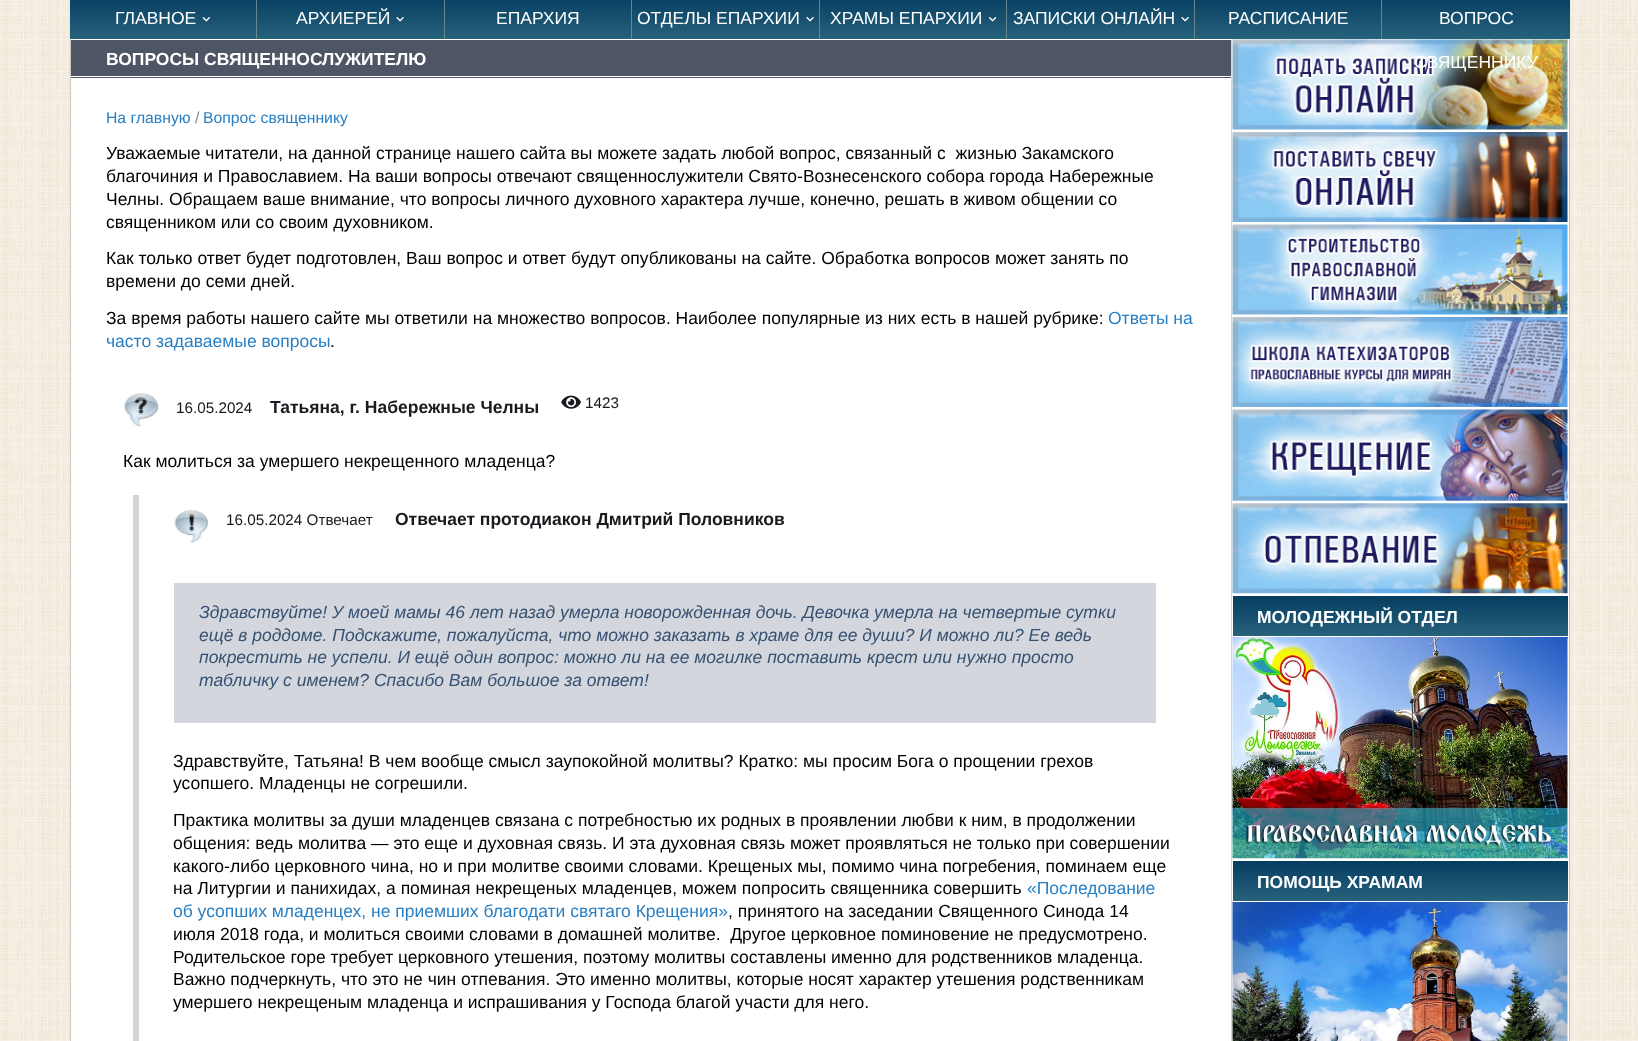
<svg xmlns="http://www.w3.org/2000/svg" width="1638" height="1041">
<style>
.a{font:17.5px Liberation Sans;fill:#fff}
.b{font:bold 17.5px Liberation Sans;fill:#fff}
.c{font:15.75px Liberation Sans;fill:#287fc3}
.d{font:15.75px Liberation Sans;fill:#788f97}
.e{font:17.5px Liberation Sans;fill:#000}
.f{font:17.5px Liberation Sans;fill:#287fc3}
.g{font:15.25px Liberation Sans;fill:#191a1f}
.h{font:bold 17.5px Liberation Sans;fill:#191a1f}
.i{font:italic 17.5px Liberation Sans;fill:#375172}
</style>
<defs>
<linearGradient id="g1" gradientUnits="userSpaceOnUse" x1="820" y1="-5" x2="820" y2="39"><stop offset="0" stop-color="#053d60"/><stop offset="1" stop-color="#27627c"/></linearGradient>
<linearGradient id="g2" gradientUnits="userSpaceOnUse" x1="1400" y1="596" x2="1400" y2="636"><stop offset="0" stop-color="#053d60"/><stop offset="1" stop-color="#27627c"/></linearGradient>
<linearGradient id="g3" gradientUnits="userSpaceOnUse" x1="1400" y1="861" x2="1400" y2="901"><stop offset="0" stop-color="#053d60"/><stop offset="1" stop-color="#27627c"/></linearGradient>
</defs>
<rect width="100%" height="100%" fill="#fff"/>
<image href="1.png" x="0" y="0" width="1638" height="1041"/>
<path fill="#fff" d="M70 39h1500v1002H70z"/>
<path fill="url(#g1)" d="M70 0h1500v39H70z"/>
<path fill="#69848d" d="M256 0h1v39H256z"/>
<image href="2.png" x="202" y="17" width="8" height="5"/>
<path fill="#69848d" d="M444 0h1v39H444z"/>
<image href="3.png" x="396" y="17" width="8" height="5"/>
<path fill="#69848d" d="M631 0h1v39H631z"/>
<path fill="#69848d" d="M819 0h1v39H819z"/>
<image href="3.png" x="806" y="17" width="8" height="5"/>
<path fill="#69848d" d="M1006 0h1v39H1006z"/>
<image href="4.png" x="988" y="17" width="9" height="5"/>
<path fill="#69848d" d="M1194 0h1v39H1194z"/>
<image href="3.png" x="1181" y="17" width="8" height="5"/>
<path fill="#69848d" d="M1381 0h1v39H1381z"/>
<path fill="#cbc8bf" d="M1569 40h1v1001H1569z"/>
<path fill="#cbc8bf" d="M70 40h1v1001H70z"/>
<path fill="#4e5564" d="M71 40h1160v38H71z"/>
<path fill="#fff" d="M71 76h1160v1H71z"/>
<image href="5.png" x="124" y="393" width="35" height="34"/>
<image href="6.png" x="561" y="395" width="20" height="14"/>
<path fill="#d3d3d3" d="M133 495h6v546H133z"/>
<image href="7.png" x="174" y="510" width="35" height="33"/>
<path fill="#d3d7dd" d="M174 583h982v140H174z"/>
<path fill="#d6d6d6" d="M1231 40h1v1001H1231z"/>
<image href="8.png" x="1232" y="39" width="336" height="91"/>
<image href="9.png" x="1232" y="132" width="336" height="90"/>
<image href="10.png" x="1232" y="224" width="336" height="91"/>
<image href="11.png" x="1232" y="317" width="336" height="90"/>
<image href="12.png" x="1232" y="409" width="336" height="92"/>
<image href="13.png" x="1232" y="503" width="336" height="91"/>
<path fill="#053d60" d="M1567 637h1v1H1567z"/>
<path fill="url(#g2)" d="M1233 596h335v40H1233z"/>
<image href="14.png" x="1232" y="637" width="336" height="222"/>
<path fill="#053d60" d="M1567 902h1v1H1567z"/>
<path fill="url(#g3)" d="M1233 861h335v40H1233z"/>
<image href="15.png" x="1232" y="902" width="336" height="139"/>
<text class="a" x="115" y="24">ГЛАВНОЕ</text>
<text class="a" x="296" y="24">АРХИЕРЕЙ</text>
<text class="a" x="496" y="24">ЕПАРХИЯ</text>
<text class="a" x="637" y="24">ОТДЕЛЫ ЕПАРХИИ</text>
<text class="a" x="830" y="24">ХРАМЫ ЕПАРХИИ</text>
<text class="a" x="1013" y="24">ЗАПИСКИ ОНЛАЙН</text>
<text class="a" x="1228" y="24">РАСПИСАНИЕ</text>
<text class="a" x="1439" y="24">ВОПРОС</text>
<text class="a" x="1414" y="68">СВЯЩЕННИКУ</text>
<text class="b" x="106" y="65">ВОПРОСЫ СВЯЩЕННОСЛУЖИТЕЛЮ</text>
<text class="c" x="106" y="123">На главную</text>
<text class="d" x="195" y="123">/</text>
<text class="c" x="203" y="123">Вопрос священнику</text>
<text class="e" xml:space="preserve" x="106" y="159">Уважаемые читатели, на данной странице нашего сайта вы можете задать любой вопрос, связанный с  жизнью Закамского</text>
<text class="e" x="106" y="182">благочиния и Православием. На ваши вопросы отвечают священнослужители Свято-Вознесенского собора города Набережные</text>
<text class="e" x="106" y="205">Челны. Обращаем ваше внимание, что вопросы личного духовного характера лучше, конечно, решать в живом общении со</text>
<text class="e" x="106" y="228">священником или со своим духовником.</text>
<text class="e" x="106" y="264">Как только ответ будет подготовлен, Ваш вопрос и ответ будут опубликованы на сайте. Обработка вопросов может занять по</text>
<text class="e" x="106" y="287">времени до семи дней.</text>
<text class="e" x="106" y="324">За время работы нашего сайте мы ответили на множество вопросов. Наиболее популярные из них есть в нашей рубрике:</text>
<text class="f" x="1108" y="324">Ответы на</text>
<text class="f" x="106" y="347">часто задаваемые вопросы</text>
<text class="e" x="330" y="347">.</text>
<text class="g" x="176" y="413">16.05.2024</text>
<text class="h" x="270" y="413">Татьяна, г. Набережные Челны</text>
<text class="g" x="585" y="408">1423</text>
<text class="e" x="123" y="467">Как молиться за умершего некрещенного младенца?</text>
<text class="g" x="226" y="525">16.05.2024 Отвечает</text>
<text class="h" x="395" y="525">Отвечает протодиакон Дмитрий Половников</text>
<text class="i" x="199" y="618">Здравствуйте! У моей мамы 46 лет назад умерла новорожденная дочь. Девочка умерла на четвертые сутки</text>
<text class="i" x="199" y="641">ещё в роддоме. Подскажите, пожалуйста, что можно заказать в храме для ее души? И можно ли? Ее ведь</text>
<text class="i" x="199" y="663">покрестить не успели. И ещё один вопрос: можно ли на ее могилке поставить крест или нужно просто</text>
<text class="i" x="199" y="686">табличку с именем? Спасибо Вам большое за ответ!</text>
<text class="e" x="173" y="767">Здравствуйте, Татьяна! В чем вообще смысл заупокойной молитвы? Кратко: мы просим Бога о прощении грехов</text>
<text class="e" x="173" y="789">усопшего. Младенцы не согрешили.</text>
<text class="e" x="173" y="826">Практика молитвы за души младенцев связана с потребностью их родных в проявлении любви к ним, в продолжении</text>
<text class="e" x="173" y="849">общения: ведь молитва — это еще и духовная связь. И эта духовная связь может проявляться не только при совершении</text>
<text class="e" x="173" y="872">какого-либо церковного чина, но и при молитве своими словами. Крещеных мы, помимо чина погребения, поминаем еще</text>
<text class="e" x="173" y="894">на Литургии и панихидах, а поминая некрещеных младенцев, можем попросить священника совершить</text>
<text class="f" x="1027" y="894">«Последование</text>
<text class="f" x="173" y="917">об усопших младенцех, не приемших благодати святаго Крещения»</text>
<text class="e" x="728" y="917">, принятого на заседании Священного Синода 14</text>
<text class="e" xml:space="preserve" x="173" y="940">июля 2018 года, и молиться своими словами в домашней молитве.  Другое церковное поминовение не предусмотрено.</text>
<text class="e" x="173" y="963">Родительское горе требует церковного утешения, поэтому молитвы составлены именно для родственников младенца.</text>
<text class="e" x="173" y="985">Важно подчеркнуть, что это не чин отпевания. Это именно молитвы, которые носят характер утешения родственникам</text>
<text class="e" x="173" y="1008">умершего некрещеным младенца и испрашивания у Господа благой участи для него.</text>
<text class="b" x="1257" y="623">МОЛОДЕЖНЫЙ ОТДЕЛ</text>
<text class="b" x="1257" y="888">ПОМОЩЬ ХРАМАМ</text>
</svg>
